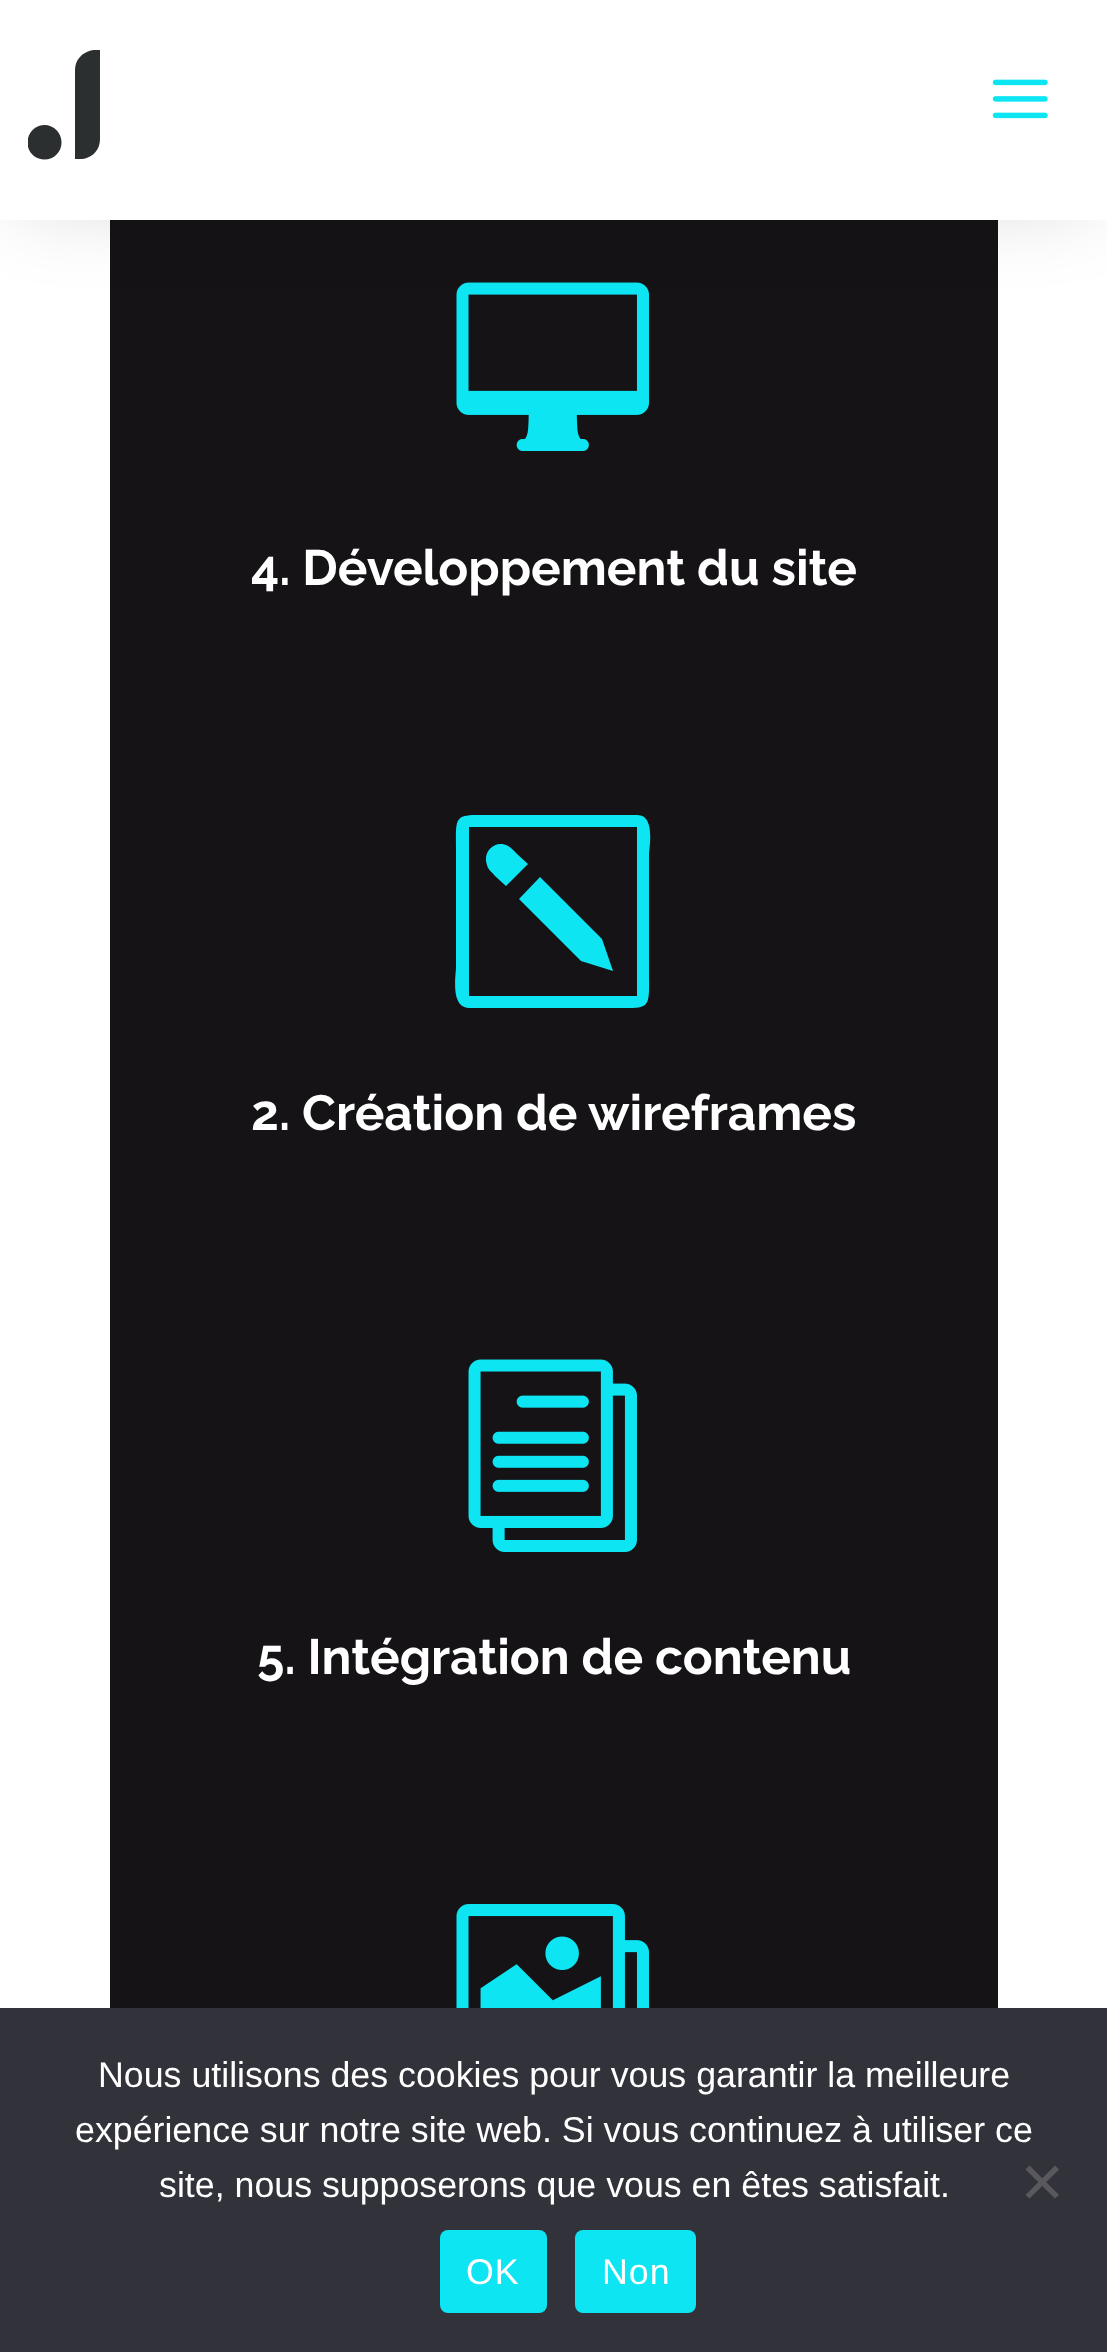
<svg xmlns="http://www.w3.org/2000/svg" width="1107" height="2352">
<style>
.a{font:bold 49.5px Raleway;fill:#fff}
.b{font:35.75px Liberation Sans;fill:#fff}
.c{font:35.75px Liberation Sans;letter-spacing:1px;fill:#fff}
</style>
<defs>
<clipPath id="clip1"><path d="M28 50h74v110H28z"/></clipPath>
</defs>
<rect width="100%" height="100%" fill="#fff"/>
<path fill="#151316" d="M110 220h888v1788H110z"/>
<image href="2.png" x="456" y="282" width="193" height="169"/>
<path fill="#00000029" filter="blur(41px)" d="M17 17h1075v187H17z"/>
<path fill="#fff" d="M0 0h1107v220H0z"/>
<g clip-path="url(#clip1)">
<path fill="#2c2f30" d="M44.5 159.5c9.5 0 17-7.5 17-17c0-9.5-7.5-17.5-17-17.5c-9.5 0-17 8-17 17.5c0 9.5 7.5 17 17 17z"/>
</g>
<path fill="#2c2f30" d="M96 50c-11 0-21 8-21 20v89h5c11 0 20-8 20-20v-89z"/>
<image href="1.png" x="992" y="79" width="56" height="40"/>
<path fill="#0de5f3" d="M581 961l32 10l-11-32l-62-62l-21 22zm-75-75l22-22l-11-10c-3-3-5-6-9-8c-13-7-26 6-21 19c1 5 5 7 8 11zm131-71h-140c-45 0-41-4-41 40v112c0 8-6 40 13 41h140c44 0 40 4 40-41v-112c0-7 7-40-12-40zm0 181h-168v-169h168z"/>
<image href="3.png" x="468" y="1359" width="169" height="193"/>
<image href="4.png" x="456" y="1904" width="193" height="104"/>
<path fill="#32323a" d="M0 2008h1107v344H0z"/>
<path fill="#59595d" d="M1055 2165.5l4 4l-29.5 29l-4-3.5z"/>
<path fill="#59595d" d="M1025.5 2169.5l4-4l29.5 29.5l-4 3.5z"/>
<rect fill="#0de5f3" x="440" y="2230" width="107" height="83" rx="8"/>
<rect fill="#0de5f3" x="575" y="2230" width="121" height="83" rx="8"/>
<text class="a" x="251" y="585">4. Développement du site</text>
<text class="a" x="251" y="1130">2. Création de wireframes</text>
<text class="a" x="257" y="1674">5. Intégration de contenu</text>
<text class="b" x="98" y="2087">Nous utilisons des cookies pour vous garantir la meilleure</text>
<text class="b" x="75" y="2142">expérience sur notre site web. Si vous continuez à utiliser ce</text>
<text class="b" x="159" y="2197">site, nous supposerons que vous en êtes satisfait.</text>
<text class="c" x="466" y="2284">OK</text>
<text class="c" x="602" y="2284">Non</text>
</svg>
